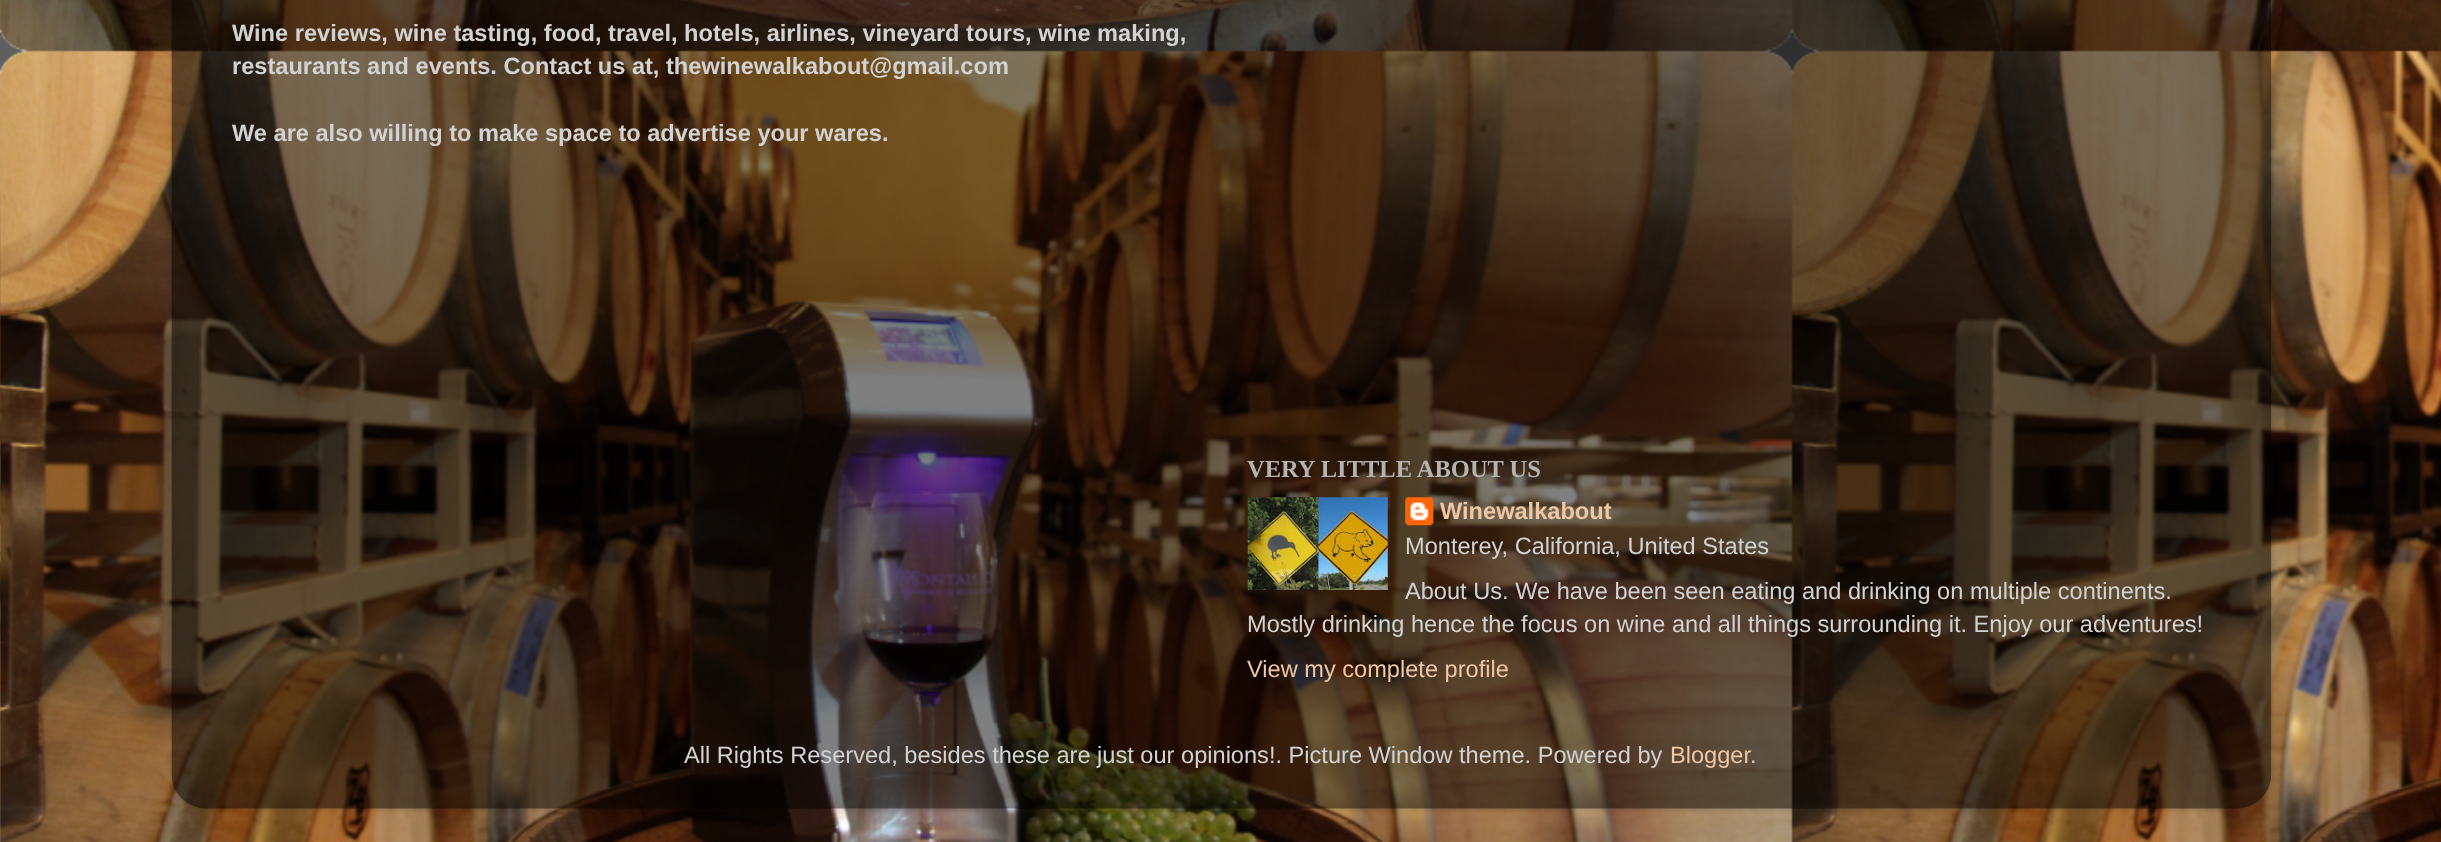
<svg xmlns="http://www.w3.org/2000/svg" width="2441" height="842">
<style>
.a{font:bold 23.6px Liberation Sans;fill:#d2d2d2}
.b{font:bold 24.5px Liberation Serif;fill:#b3b3b3}
.c{font:bold 23.6px Liberation Sans;fill:#f0c7a5}
.d{font:23.6px Liberation Sans;fill:#d2d2d2}
.e{font:23.6px Liberation Sans;fill:#f0c7a5}
</style>
<defs>
<clipPath id="clip1"><path d="M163 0h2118v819h-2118zm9-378h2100v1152c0 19.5-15.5 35-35 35h-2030c-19.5 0-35-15.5-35-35z" clip-rule="evenodd"/></clipPath>
</defs>
<rect width="100%" height="100%" fill="#5f5f5f"/>
<image href="1.png" x="0" y="0" width="2441" height="842"/>
<g clip-path="url(#clip1)">
<rect fill="#00000026" filter="blur(2.5px)" x="172" y="-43" width="2100" height="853" rx="35"/>
</g>
<image href="2.png" x="171" y="0" width="2101" height="809"/>
<image href="3.png" x="1247" y="497" width="141" height="93"/>
<image href="4.png" x="1405" y="497" width="29" height="29"/>
<text class="a" x="232" y="41">Wine reviews, wine tasting, food, travel, hotels, airlines, vineyard tours, wine making,</text>
<text class="a" x="232" y="74">restaurants and events. Contact us at, thewinewalkabout@gmail.com</text>
<text class="a" x="232" y="141">We are also willing to make space to advertise your wares.</text>
<text class="b" x="1247" y="477">VERY LITTLE ABOUT US</text>
<text class="c" x="1440" y="519">Winewalkabout</text>
<text class="d" x="1405" y="554">Monterey, California, United States</text>
<text class="d" x="1405" y="599">About Us. We have been seen eating and drinking on multiple continents.</text>
<text class="d" x="1247" y="632">Mostly drinking hence the focus on wine and all things surrounding it. Enjoy our adventures!</text>
<text class="e" x="1247" y="677">View my complete profile</text>
<text class="d" x="684" y="763">All Rights Reserved, besides these are just our opinions!. Picture Window theme. Powered by</text>
<text class="e" x="1670" y="763">Blogger</text>
<text class="d" x="1750" y="763">.</text>
</svg>
